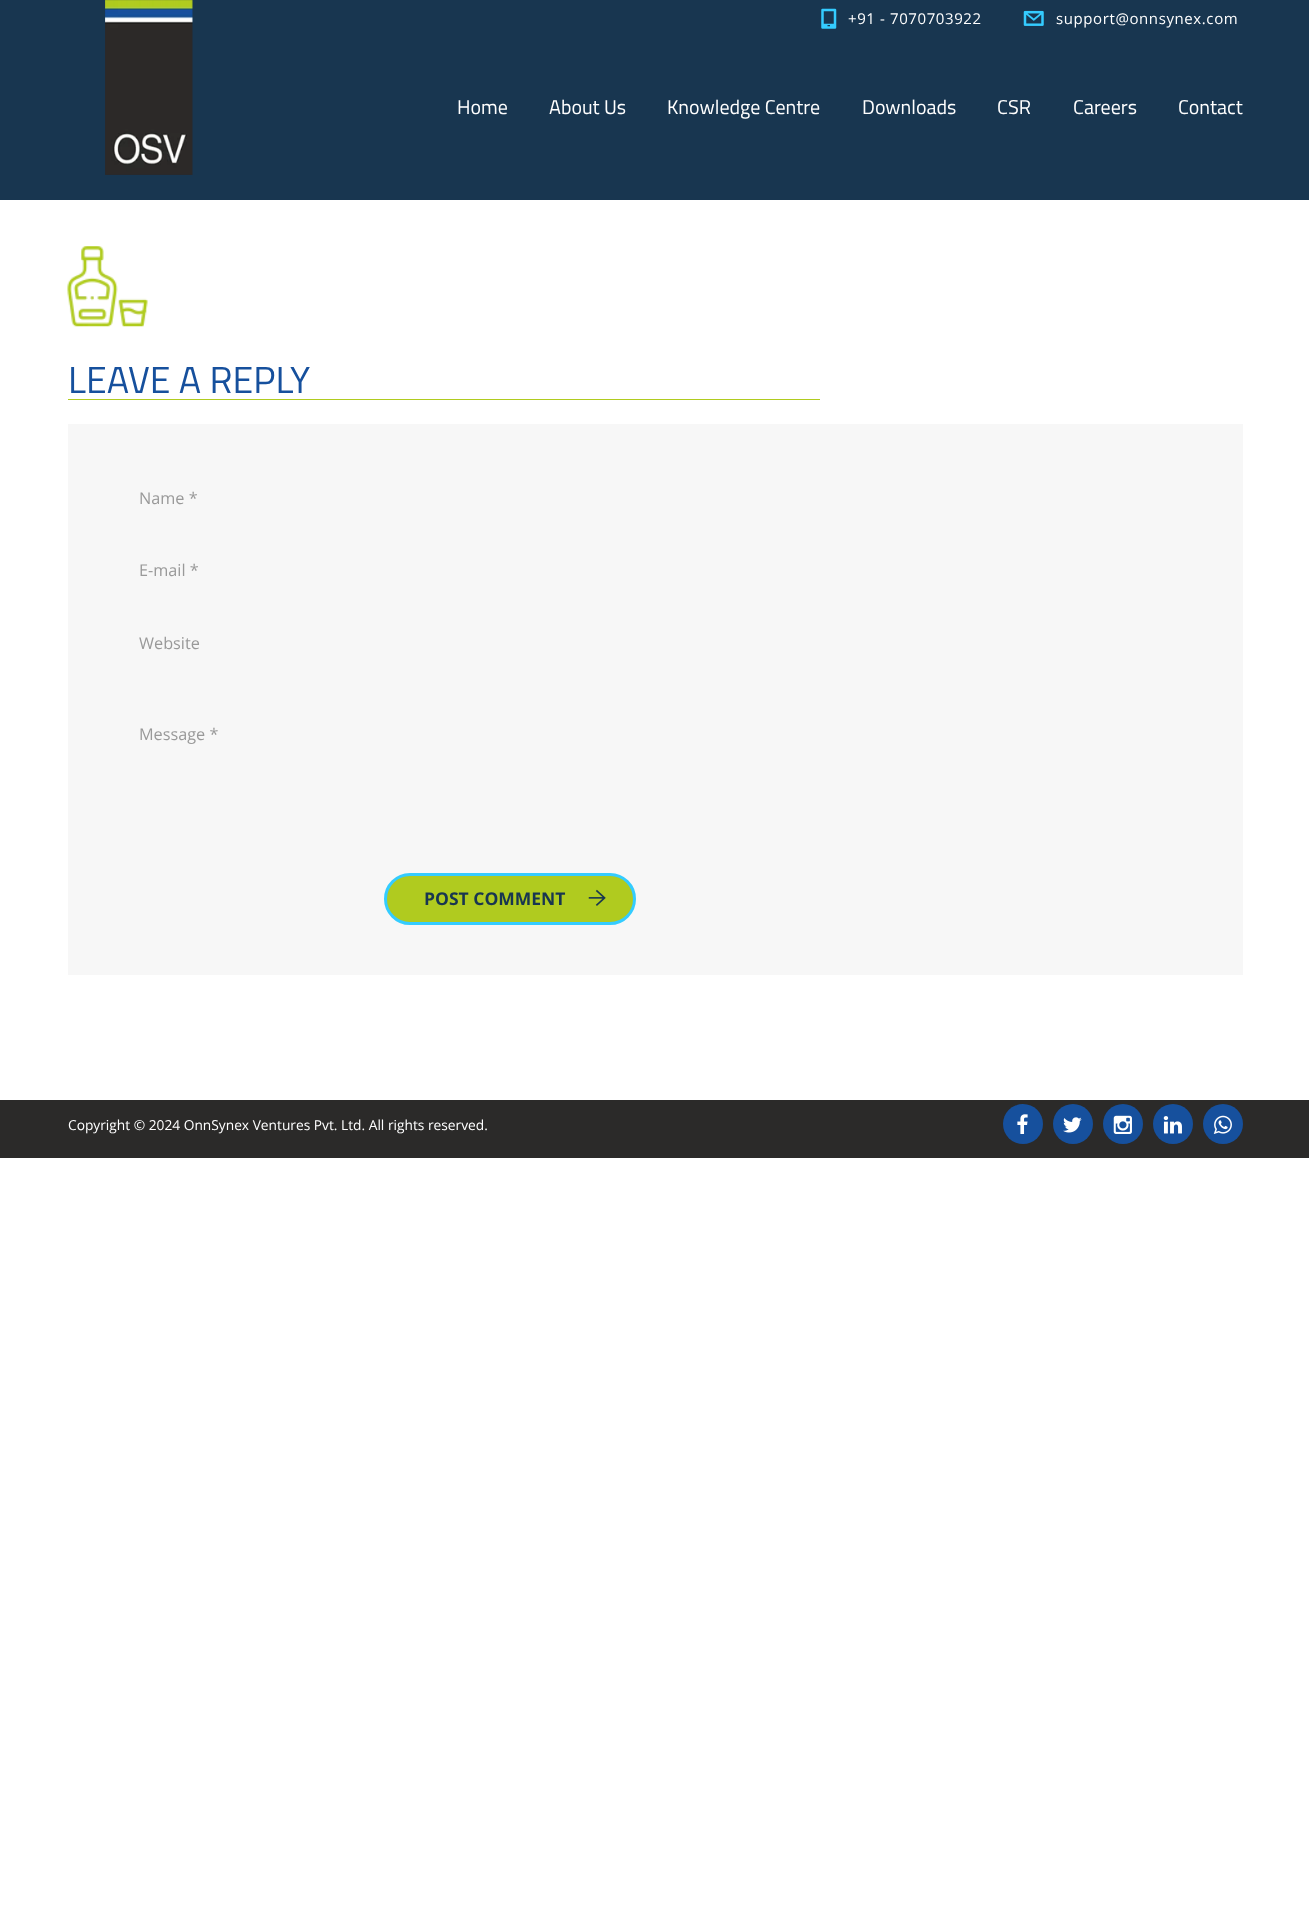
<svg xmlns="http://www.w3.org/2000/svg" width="1309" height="1932">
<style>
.a{font:15px Open Sans;letter-spacing:0.6px;fill:#fff}
.b{font:20px Titillium Web;fill:#fff}
.c{font:37.5px Titillium Web;fill:#16509d}
.d{font:16.25px Open Sans;fill:#999}
.e{font:bold 17.5px Open Sans;fill:#183650}
.f{font:13.75px Open Sans;fill:#fff}
</style>
<rect width="100%" height="100%" fill="#fff"/>
<path fill="#183650" d="M0 0h1309v200H0z"/>
<image href="1.png" x="821" y="8" width="16" height="21"/>
<image href="2.png" x="1023" y="10" width="21" height="16"/>
<image href="3.png" x="105" y="0" width="88" height="175"/>
<image href="4.png" x="67" y="246" width="81" height="81"/>
<path fill="#b0cb1f" d="M68 399h752v1H68z"/>
<path fill="#f7f7f7" d="M68 424h1175v551H68z"/>
<rect fill="#b0cb1f" stroke="#34ccff" stroke-width="3" x="385.5" y="874.5" width="249" height="49" rx="24.5"/>
<image href="5.png" x="588" y="889" width="18" height="17"/>
<path fill="#2b2a29" d="M0 1100h1309v58H0z"/>
<circle fill="#16509d" cx="1023" cy="1124" r="20"/>
<image href="6.png" x="1017" y="1114" width="11" height="20"/>
<circle fill="#16509d" cx="1073" cy="1124" r="20"/>
<image href="7.png" x="1063" y="1117" width="19" height="16"/>
<circle fill="#16509d" cx="1123" cy="1124" r="20"/>
<image href="8.png" x="1113" y="1115" width="19" height="19"/>
<circle fill="#16509d" cx="1173" cy="1124" r="20"/>
<image href="9.png" x="1163" y="1116" width="19" height="18"/>
<circle fill="#16509d" cx="1223" cy="1124" r="20"/>
<image href="10.png" x="1213" y="1115" width="19" height="19"/>
<text class="a" x="848" y="24">+91 - 7070703922</text>
<text class="a" x="1056" y="24">support@onnsynex.com</text>
<text class="b" x="457" y="114">Home</text>
<text class="b" x="549" y="114">About Us</text>
<text class="b" x="667" y="114">Knowledge Centre</text>
<text class="b" x="862" y="114">Downloads</text>
<text class="b" x="997" y="114">CSR</text>
<text class="b" x="1073" y="114">Careers</text>
<text class="b" x="1178" y="114">Contact</text>
<text class="c" x="68" y="393">LEAVE A REPLY</text>
<text class="d" x="139" y="504">Name *</text>
<text class="d" x="139" y="576">E-mail *</text>
<text class="d" x="139" y="649">Website</text>
<text class="d" x="139" y="740">Message *</text>
<text class="e" x="424" y="905">POST COMMENT</text>
<text class="f" x="68" y="1130">Copyright © 2024 OnnSynex Ventures Pvt. Ltd. All rights reserved.</text>
</svg>
